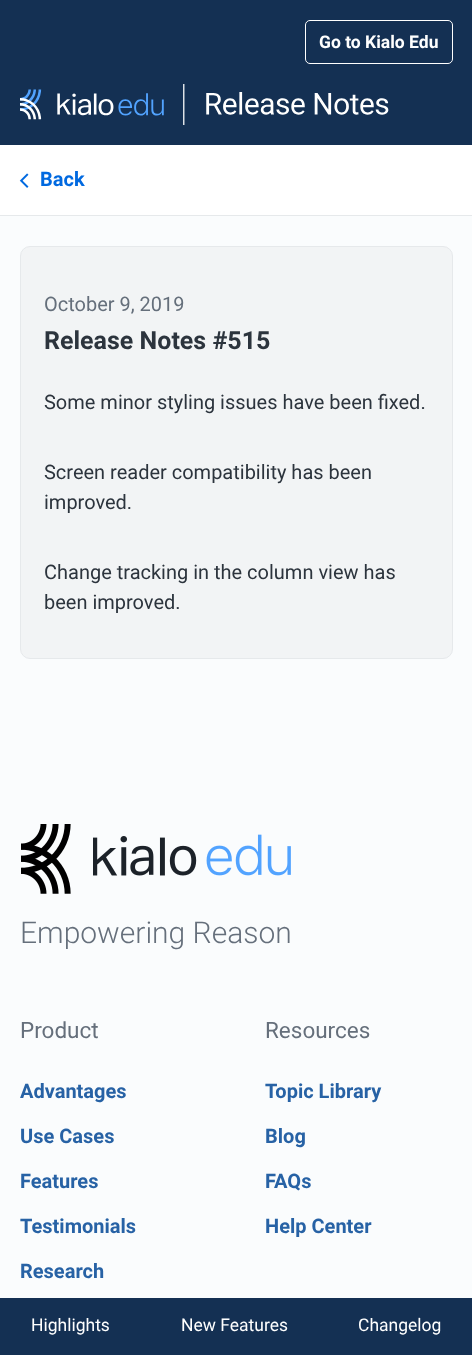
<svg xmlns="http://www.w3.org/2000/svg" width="472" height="1355">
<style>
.a{font:bold 17.5px Roboto;fill:#fff}
.b{font:bold 20px Roboto;fill:#0069e0}
.c{font:20px Roboto;fill:#656f7b}
.d{font:bold 25px Roboto;fill:#2c343d}
.e{font:20px Roboto;fill:#2c343d}
.f{font:300 30px Roboto;fill:#656f7b}
.g{font:22.5px Roboto;fill:#656f7b}
.h{font:bold 20px Roboto;fill:#2762a5}
.i{font:17.5px Roboto;fill:#fff}
</style>
<rect width="100%" height="100%" fill="#fafcfd"/>
<path fill="#143053" d="M0 0h472v145H0z"/>
<rect fill="none" stroke="#fff" x="305.5" y="20.5" width="147" height="43" rx="4.5"/>
<image href="1.png" x="20" y="84" width="369" height="41"/>
<path fill="#fff" d="M0 145h472v70H0z"/>
<path fill="#e6e9eb" d="M0 215h472v1H0z"/>
<image href="2.png" x="19" y="173" width="10" height="15"/>
<rect fill="#f2f4f5" stroke="#e6e9eb" x="20.5" y="246.5" width="432" height="412" rx="9.5"/>
<image href="3.png" x="21" y="824" width="50" height="70"/>
<image href="4.png" x="93" y="834" width="198" height="42"/>
<path fill="#143053" d="M0 1298h472v57H0z"/>
<text class="a" x="319" y="48">Go to Kialo Edu</text>
<text class="b" x="40" y="186">Back</text>
<text class="c" x="44" y="311">October 9, 2019</text>
<text class="d" x="44" y="349">Release Notes #515</text>
<text class="e" x="44" y="409">Some minor styling issues have been fixed.</text>
<text class="e" x="44" y="479">Screen reader compatibility has been</text>
<text class="e" x="44" y="509">improved.</text>
<text class="e" x="44" y="579">Change tracking in the column view has</text>
<text class="e" x="44" y="609">been improved.</text>
<text class="f" x="20" y="943">Empowering Reason</text>
<text class="g" x="20" y="1038">Product</text>
<text class="h" x="20" y="1098">Advantages</text>
<text class="h" x="20" y="1143">Use Cases</text>
<text class="h" x="20" y="1188">Features</text>
<text class="h" x="20" y="1233">Testimonials</text>
<text class="h" x="20" y="1278">Research</text>
<text class="g" x="265" y="1038">Resources</text>
<text class="h" x="265" y="1098">Topic Library</text>
<text class="h" x="265" y="1143">Blog</text>
<text class="h" x="265" y="1188">FAQs</text>
<text class="h" x="265" y="1233">Help Center</text>
<text class="i" x="31" y="1331">Highlights</text>
<text class="i" x="181" y="1331">New Features</text>
<text class="i" x="358" y="1331">Changelog</text>
</svg>
